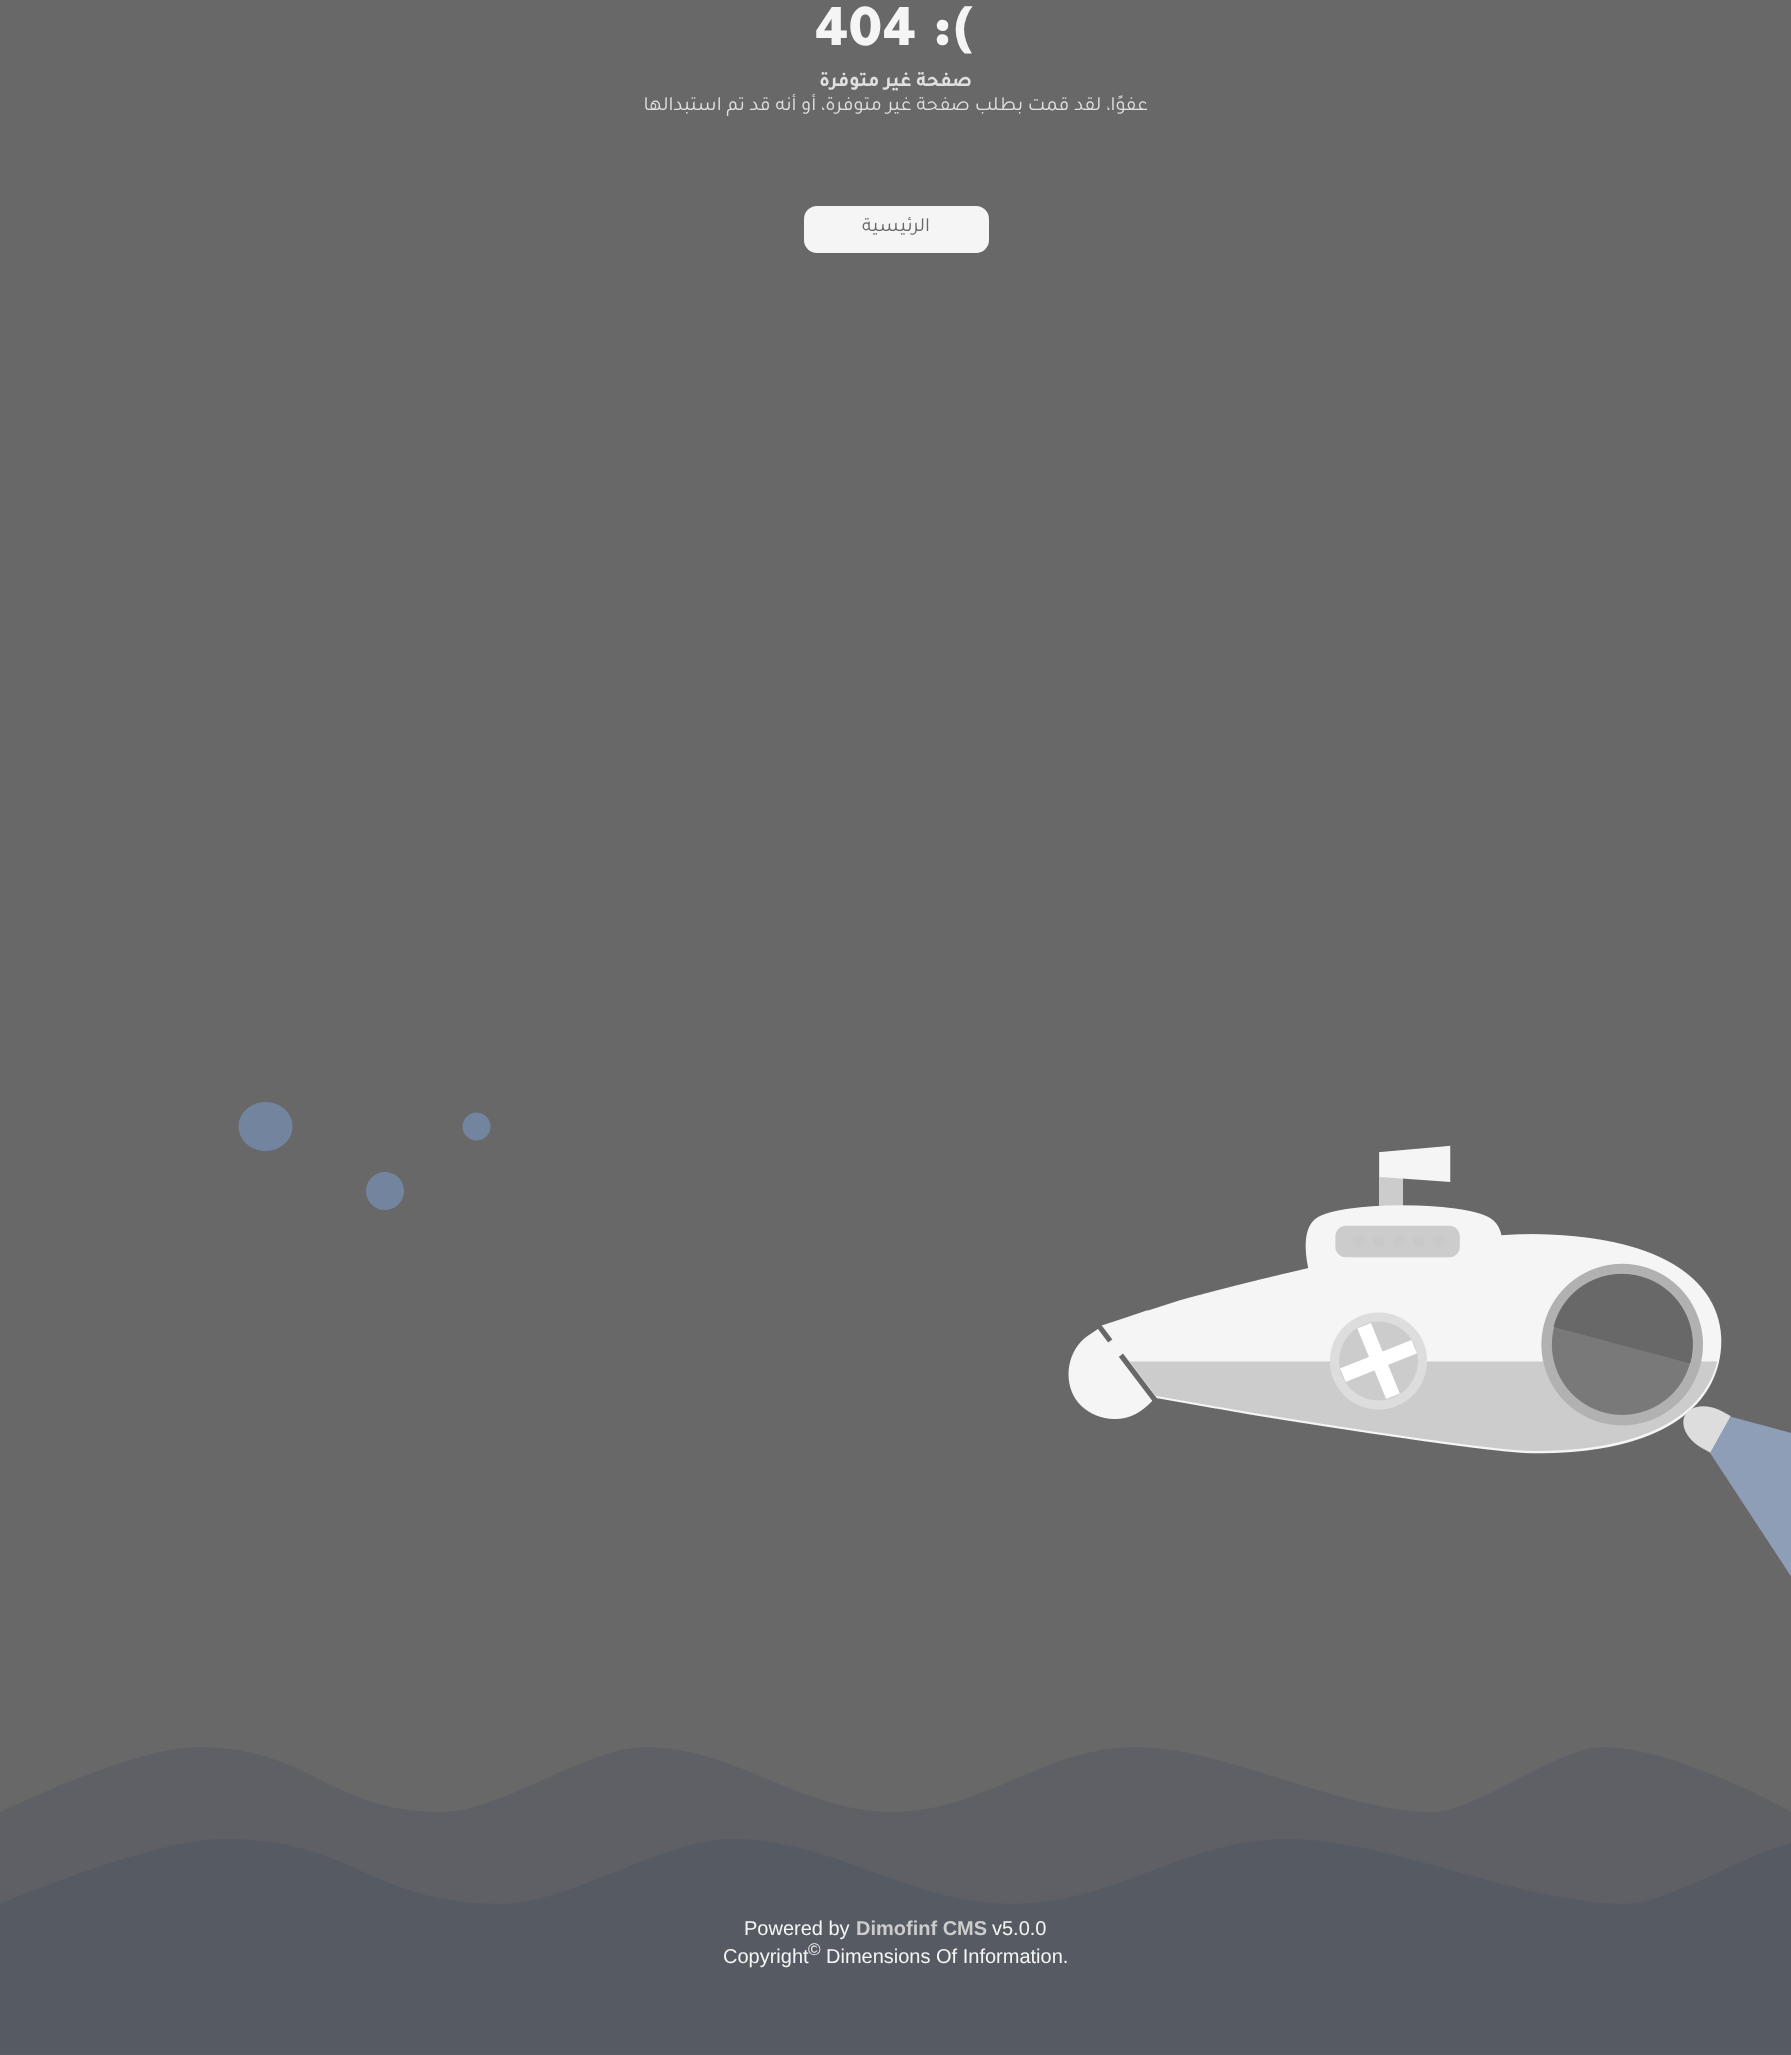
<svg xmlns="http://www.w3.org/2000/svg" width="1791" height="2055">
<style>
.a{font:900 60px Tajawal;fill:#f5f5f5}
.b{font:bold 20px Tajawal;direction:rtl;fill:#e0e0e0}
.c{font:20px Tajawal;direction:rtl;fill:#e0e0e0}
.d{font:20px Tajawal;direction:rtl;fill:#686868}
.e{font:20px Liberation Sans;fill:#f5f5f5}
.f{font:bold 20px Liberation Sans;fill:#ccc}
.g{font:17px Liberation Sans;fill:#f5f5f5}
</style>
<rect width="100%" height="100%" fill="#686868"/>
<rect fill="#f5f5f5" x="804" y="206" width="185" height="47" rx="13"/>
<image href="1.png" x="238" y="1102" width="1553" height="475"/>
<image href="2.png" x="0" y="1747" width="1791" height="308"/>
<text class="a" x="815" y="45">404 :(</text>
<text class="b" x="972" y="86">صفحة غير متوفرة</text>
<text class="c" x="1148" y="110">عفوًا، لقد قمت بطلب صفحة غير متوفرة، أو أنه قد تم استبدالها</text>
<text class="d" x="930" y="231">الرئيسية</text>
<text class="e" x="992" y="1935">v5.0.0</text>
<text class="f" x="856" y="1935">Dimofinf CMS</text>
<text class="e" x="744" y="1935">Powered by</text>
<text class="e" x="826" y="1963">Dimensions Of Information.</text>
<text class="e" x="723" y="1963">Copyright</text>
<text class="g" x="808" y="1955">©</text>
</svg>
